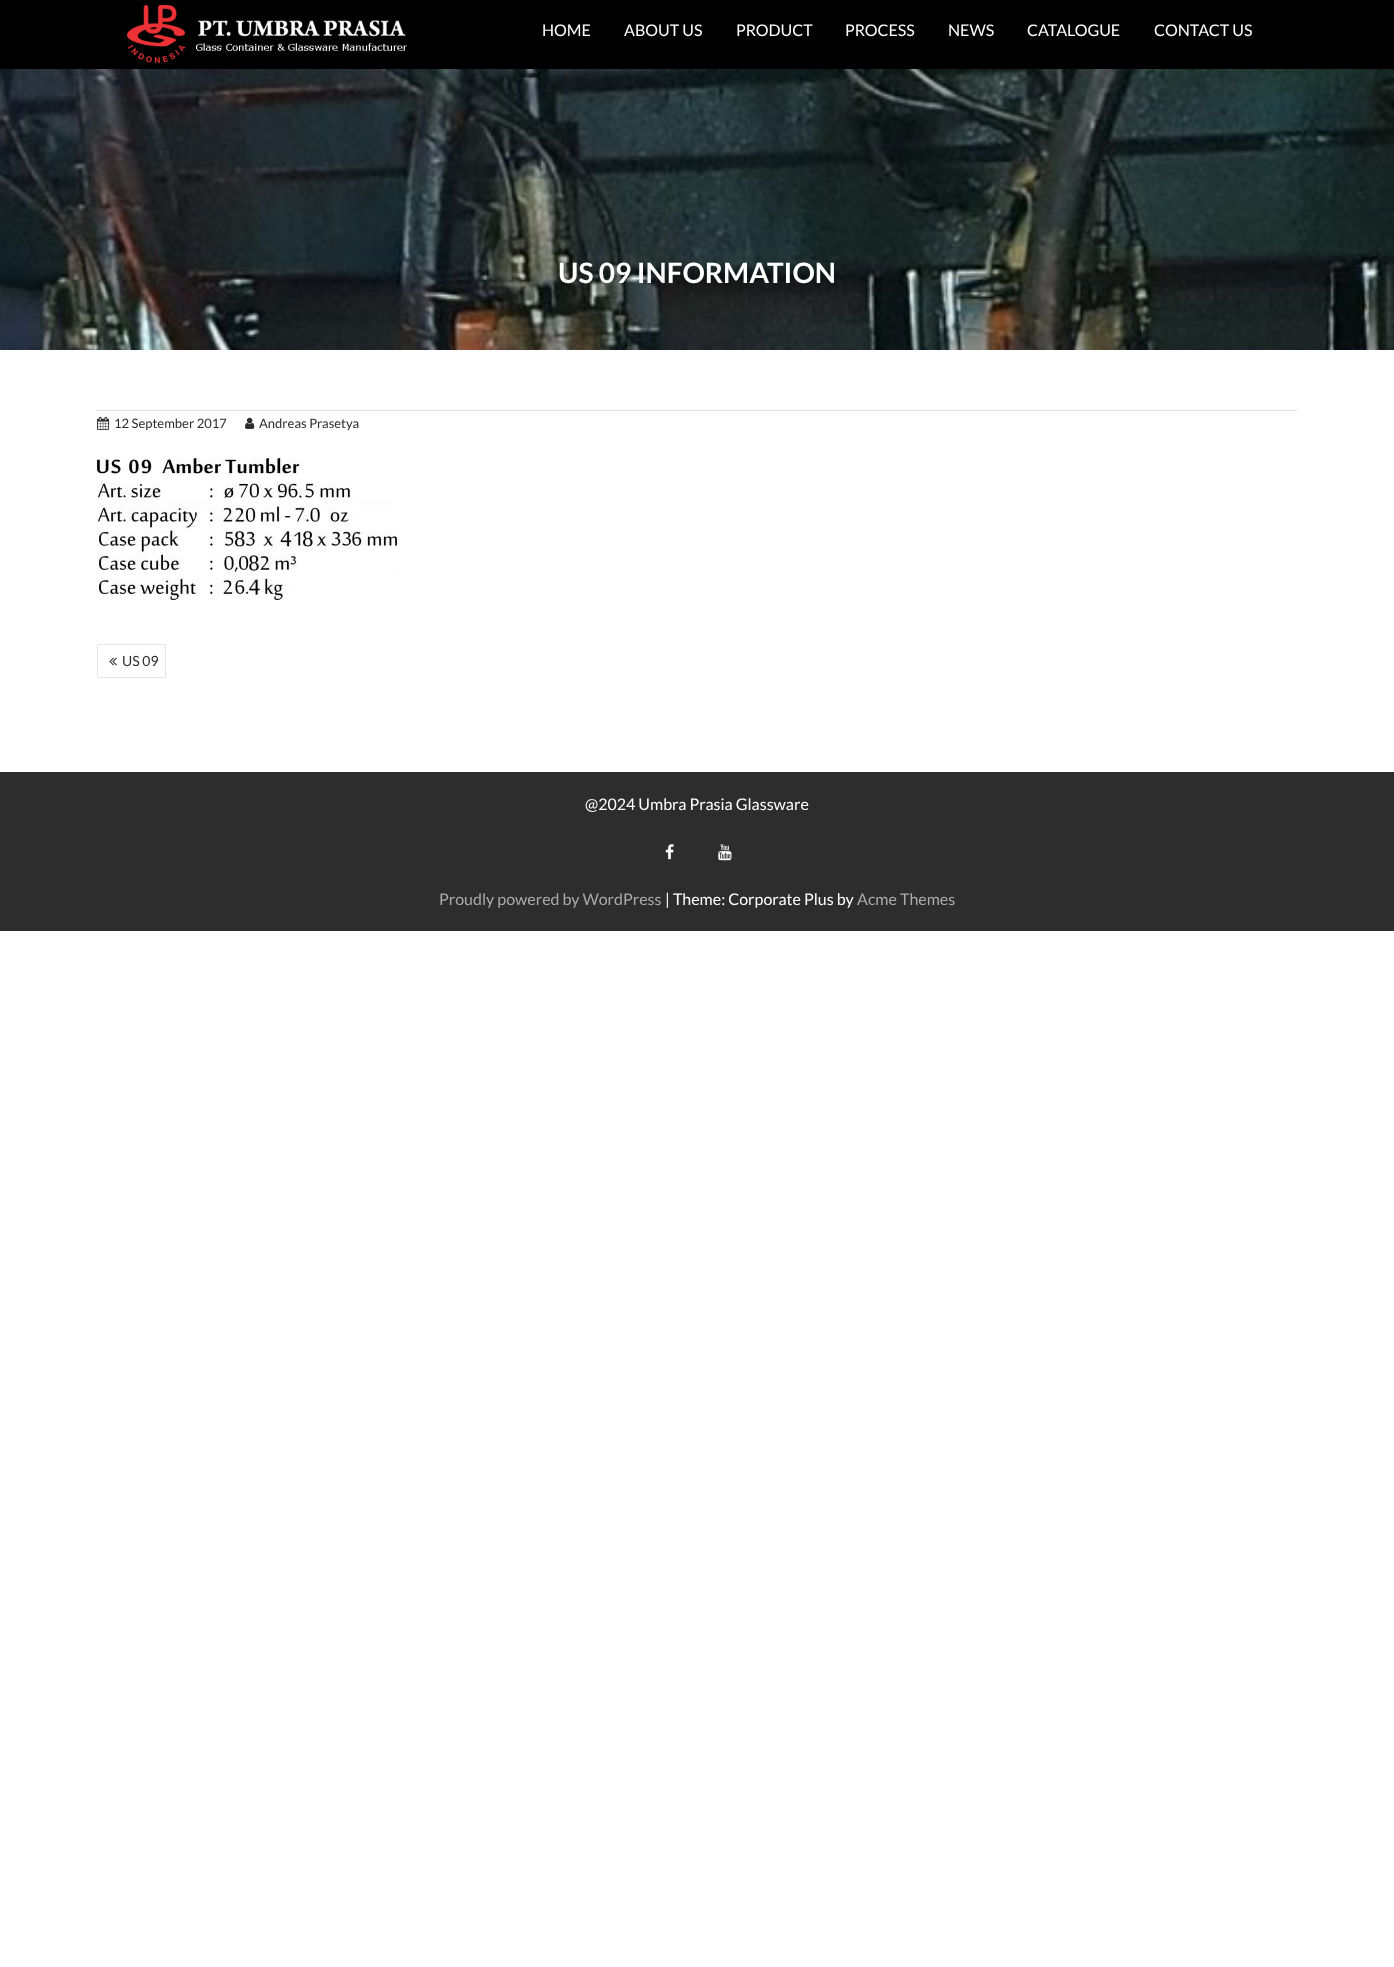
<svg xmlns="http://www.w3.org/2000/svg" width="1394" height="1967">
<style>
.a{font:16px Lato;fill:#fff}
.b{font:bold 28px Lato;fill:#fff}
.c{font:13px Lato;fill:#2d2d2d}
.d{font:14px Lato;fill:#2d2d2d}
.e{font:16px Lato;fill:#aaa}
</style>
<rect width="100%" height="100%" fill="#fff"/>
<path fill="#000" d="M0 0h1394v69H0z"/>
<image href="1.png" x="127" y="5" width="281" height="58"/>
<image href="2.png" x="0" y="69" width="1394" height="281"/>
<path fill="#ddd" d="M97 410h1200v1H97z"/>
<image href="3.png" x="97" y="416" width="13" height="14"/>
<image href="4.png" x="245" y="417" width="10" height="12"/>
<image href="5.png" x="97" y="458" width="300" height="142"/>
<rect fill="none" stroke="#e5e5e5" x="97.5" y="644.5" width="68" height="33" rx="1.5"/>
<image href="6.png" x="109" y="657" width="8" height="9"/>
<path fill="#2d2d2d" d="M0 772h1394v159H0z"/>
<image href="7.png" x="665" y="844" width="9" height="16"/>
<image href="8.png" x="718" y="844" width="14" height="17"/>
<text class="a" x="542" y="36">HOME</text>
<text class="a" x="624" y="36">ABOUT US</text>
<text class="a" x="736" y="36">PRODUCT</text>
<text class="a" x="845" y="36">PROCESS</text>
<text class="a" x="948" y="36">NEWS</text>
<text class="a" x="1027" y="36">CATALOGUE</text>
<text class="a" x="1154" y="36">CONTACT US</text>
<text class="b" x="558" y="283">US 09 INFORMATION</text>
<text class="c" x="114" y="428">12 September 2017</text>
<text class="c" x="259" y="428">Andreas Prasetya</text>
<text class="d" x="122" y="666">US 09</text>
<text class="a" x="585" y="810">@2024 Umbra Prasia Glassware</text>
<text class="e" x="439" y="905">Proudly powered by WordPress</text>
<text class="a" x="665" y="905">| Theme: Corporate Plus by</text>
<text class="e" x="857" y="905">Acme Themes</text>
</svg>
